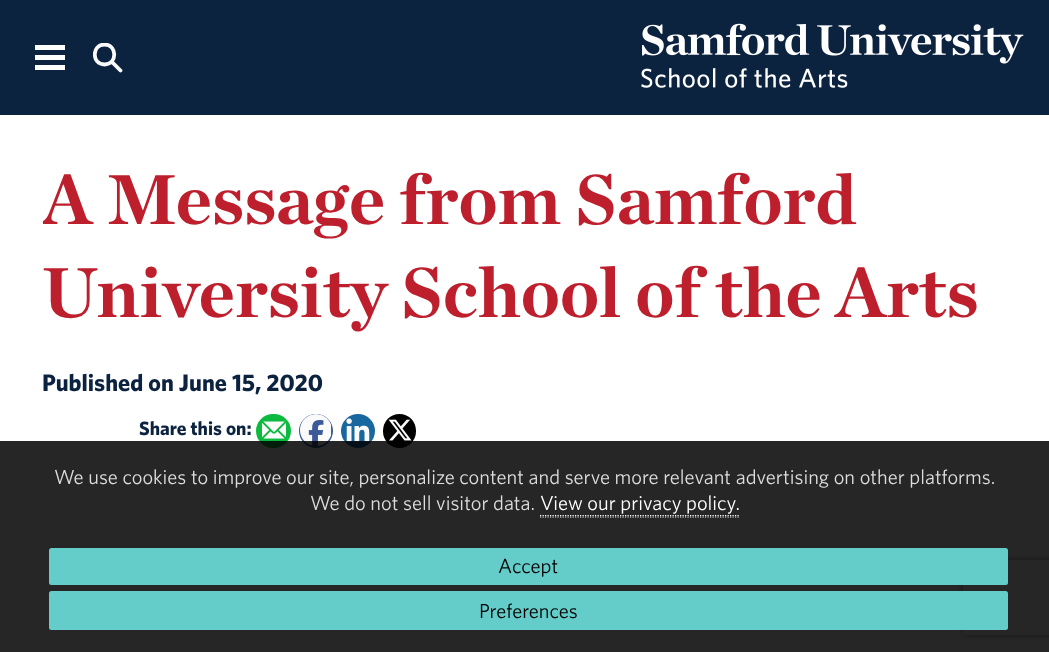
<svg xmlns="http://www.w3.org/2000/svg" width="1049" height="652">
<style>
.a{font:bold 72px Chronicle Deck;fill:#bd1f2d}
.b{font:bold 24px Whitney;fill:#0c2340}
.c{font:bold 19.25px Whitney;fill:#0c2340}
.d{font:20.4px Whitney;fill:#ddd}
.e{font:20.4px Whitney;fill:#fff}
.f{font:20.4px Whitney;fill:#000}
</style>
<defs>
<clipPath id="clip1"><path d="M93 43h30v30H93z"/></clipPath>
<clipPath id="clip2"><path d="M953 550h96v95h-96zm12.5 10h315c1.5 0 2.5 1 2.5 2.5v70c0 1.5-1 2.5-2.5 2.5h-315c-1.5 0-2.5-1-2.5-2.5v-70c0-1.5 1-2.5 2.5-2.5z" clip-rule="evenodd"/></clipPath>
<clipPath id="clip3"><path d="M43 115h965v225H43z"/></clipPath>
</defs>
<rect width="100%" height="100%" fill="#fff"/>
<path fill="#0c2340" d="M0 0h1049v115H0z"/>
<image href="1.png" x="35" y="45" width="30" height="25"/>
<g clip-path="url(#clip1)">
<path fill="none" stroke="#fafafa" stroke-width="3.8" stroke-linecap="round" stroke-linejoin="round" d="M104.5 44.5c13 0 13 20 0 20c-13 0-13-20 0-20zm7.5 17.5l8.5 8.5m-16-26c13 0 13 20 0 20c-13 0-13-20 0-20zm7.5 17.5l8.5 8.5"/>
</g>
<image href="2.png" x="641" y="23" width="383" height="65"/>
<rect fill="#0cba40" x="256" y="414" width="35" height="34" rx="17"/>
<image href="3.png" x="262" y="421" width="24" height="18"/>
<circle fill="#3c5a99" cx="316" cy="431" r="17"/>
<image href="4.png" x="300" y="414" width="31" height="32"/>
<circle fill="#18679e" cx="358" cy="431" r="17"/>
<image href="5.png" x="346" y="418" width="24" height="24"/>
<rect fill="#000" x="383" y="414" width="33" height="34" rx="16.5"/>
<image href="6.png" x="388" y="419" width="24" height="22"/>
<g clip-path="url(#clip2)">
<rect fill="#808080" filter="blur(3px)" x="963" y="560" width="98" height="75" rx="2.5"/>
</g>
<path fill="#000000d9" d="M0 441h1049v211H0z"/>
<path fill="none" stroke="#fff" stroke-width="1.2" stroke-dasharray="1.25 1.25" d="M540 515.5h200"/>
<path fill="none" stroke="#fff" stroke-width="1.2" stroke-dasharray="1.25 1.25" d="M540 517h200"/>
<rect fill="#64ccc9" x="49" y="548" width="959" height="37" rx="2.5"/>
<rect fill="#64ccc9" x="49" y="591" width="959" height="39" rx="2.5"/>
<g clip-path="url(#clip3)">
<text class="a" x="42" y="224">A Message from Samford</text>
</g>
<text class="a" x="42" y="317">University School of the Arts</text>
<text class="b" x="42" y="391">Published on June 15, 2020</text>
<text class="c" x="139" y="435">Share this on:</text>
<text class="d" x="54" y="484">We use cookies to improve our site, personalize content and serve more relevant advertising on other platforms.</text>
<text class="d" x="310" y="510">We do not sell visitor data.</text>
<text class="e" x="540" y="510">View our privacy policy.</text>
<text class="f" x="498" y="573">Accept</text>
<text class="f" x="479" y="618">Preferences</text>
</svg>
